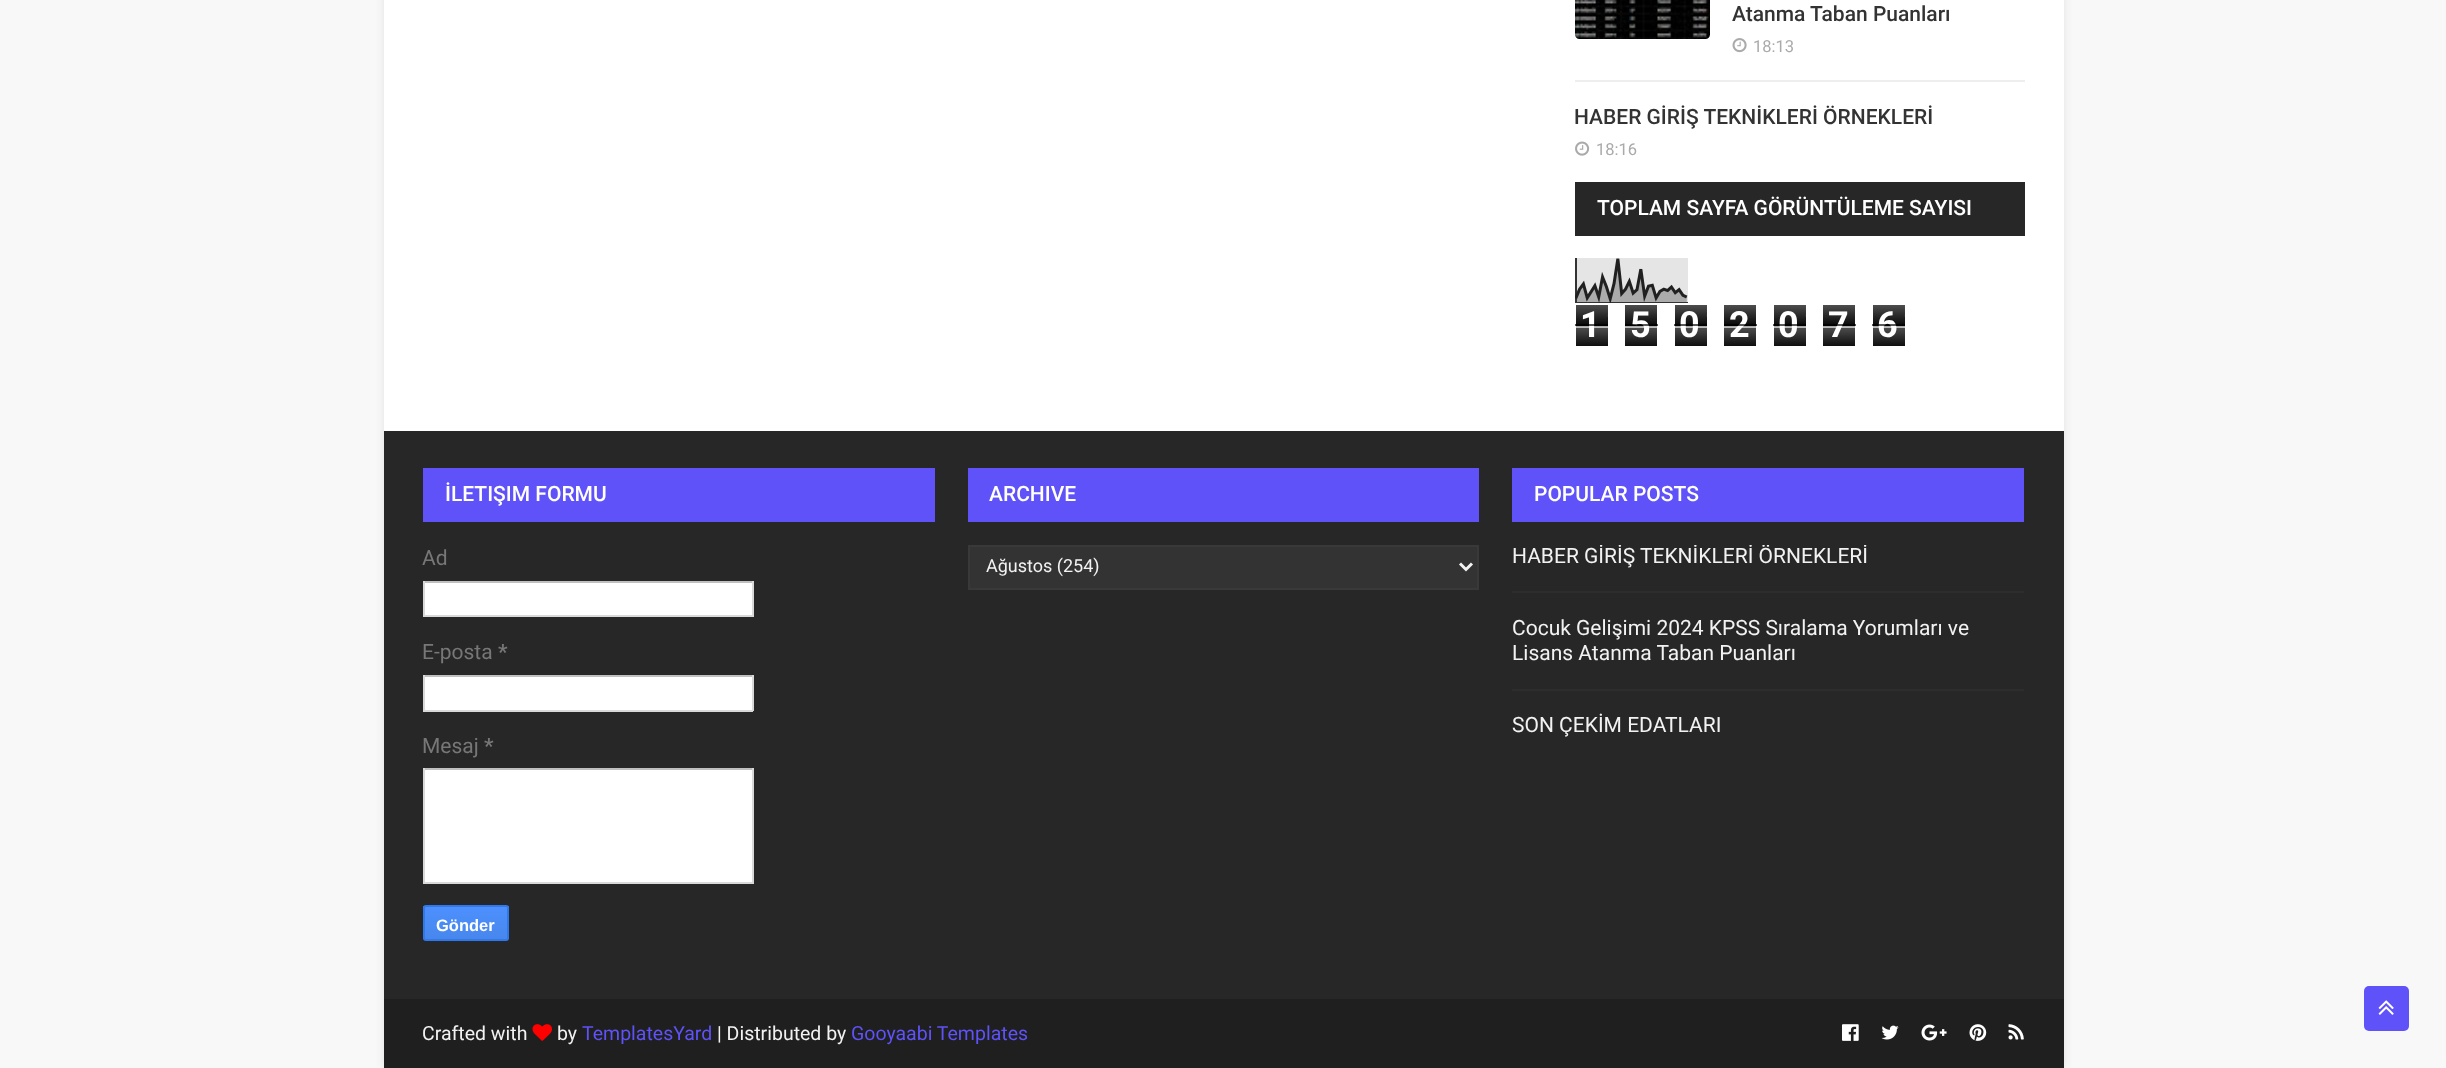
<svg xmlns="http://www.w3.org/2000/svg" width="2446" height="1068">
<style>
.a{font:500 21px Roboto;fill:#333}
.b{font:16.5px Roboto;fill:#aaa}
.c{font:500 21px Roboto;fill:#fff}
.d{font:bold 36px Roboto;fill:#fff}
.e{font:21px Roboto;fill:#777}
.f{font:bold 21px Roboto;fill:#777}
.g{font:bold 16.5px Liberation Sans;fill:#fff}
.h{font:18px Roboto;fill:#f2f2f2}
.i{font:21px Roboto;fill:#f2f2f2}
.j{font:19.5px Roboto;fill:#f2f2f2}
.k{font:19.5px Roboto;fill:#5e52f8}
</style>
<defs>
<clipPath id="clip1"><rect x="423" y="905" width="86" height="36" rx="3"/></clipPath>
<linearGradient id="g1" gradientUnits="userSpaceOnUse" x1="466" y1="906" x2="466" y2="939"><stop offset="0" stop-color="#4d90fe"/><stop offset="1" stop-color="#4787ed"/></linearGradient>
<clipPath id="clip2"><path d="M1512 545h512v46H1512z"/></clipPath>
</defs>
<rect width="100%" height="100%" fill="#f8f8f8"/>
<path fill="#3232321a" filter="blur(4px)" d="M384 -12h1680v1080H384z"/>
<path fill="#fff" d="M384 0h1680v431H384z"/>
<image href="1.png" x="1575" y="0" width="135" height="39"/>
<image href="2.png" x="1732" y="38" width="15" height="15"/>
<path fill="#eee" d="M1575 80h450v2H1575z"/>
<image href="3.png" x="1575" y="141" width="15" height="15"/>
<path fill="#272727" d="M1575 182h450v54H1575z"/>
<image href="4.png" x="1575" y="258" width="113" height="45"/>
<image href="5.png" x="1576" y="305" width="32" height="41"/>
<image href="6.png" x="1625" y="305" width="32" height="41"/>
<image href="5.png" x="1675" y="305" width="32" height="41"/>
<image href="6.png" x="1724" y="305" width="32" height="41"/>
<image href="5.png" x="1774" y="305" width="32" height="41"/>
<image href="6.png" x="1823" y="305" width="32" height="41"/>
<image href="5.png" x="1873" y="305" width="32" height="41"/>
<path fill="#272727" d="M384 431h1680v568H384z"/>
<path fill="#5e52f8" d="M423 468h512v54H423z"/>
<path fill="#fff" d="M425 583h327v32H425z"/>
<path fill="#c0c0c0" d="M423 581h330v2H423z"/>
<path fill="#d9d9d9" d="M752 581h2v36H752z"/>
<path fill="#d9d9d9" d="M423 615h330v2H423z"/>
<path fill="#d9d9d9" d="M423 581h2v36H423z"/>
<path fill="#fff" d="M425 677h327v33H425z"/>
<path fill="#c0c0c0" d="M423 675h330v2H423z"/>
<path fill="#d9d9d9" d="M752 675h2v36H752z"/>
<path fill="#d9d9d9" d="M423 710h330v2H423z"/>
<path fill="#d9d9d9" d="M423 675h2v36H423z"/>
<path fill="#fff" d="M425 770h327v112H425z"/>
<path fill="#c0c0c0" d="M423 768h330v2H423z"/>
<path fill="#d9d9d9" d="M752 768h2v116H752z"/>
<path fill="#d9d9d9" d="M423 882h330v2H423z"/>
<path fill="#d9d9d9" d="M423 768h2v116H423z"/>
<g clip-path="url(#clip1)">
<path fill="url(#g1)" d="M423 906h86v33H423z"/>
</g>
<rect fill="none" stroke="#3079ed" stroke-width="2" x="424" y="906" width="84" height="34" rx="2"/>
<path fill="#5e52f8" d="M968 468h511v54H968z"/>
<path fill="#333" stroke="#393939" stroke-width="2" d="M969 546h509v43H969z"/>
<path fill="none" stroke="#f2f2f2" stroke-width="3" d="M1460 563.5l6 6l6-6"/>
<path fill="#5e52f8" d="M1512 468h512v54H1512z"/>
<path fill="#2d2d2d" d="M1512 591h512v2H1512z"/>
<path fill="#2d2d2d" d="M1512 689h512v2H1512z"/>
<path fill="#1f1f1f" d="M384 999h1680v69H384z"/>
<image href="7.png" x="532" y="1024" width="20" height="17"/>
<image href="8.png" x="1842" y="1024" width="17" height="17"/>
<image href="9.png" x="1881" y="1025" width="18" height="15"/>
<image href="10.png" x="1921" y="1024" width="26" height="17"/>
<image href="11.png" x="1969" y="1024" width="18" height="17"/>
<image href="12.png" x="2008" y="1024" width="16" height="16"/>
<rect fill="#5e52f8" x="2364" y="986" width="45" height="45" rx="5"/>
<image href="13.png" x="2378" y="1000" width="16" height="15"/>
<text class="a" x="1732" y="21">Atanma Taban Puanları</text>
<text class="b" x="1753" y="52">18:13</text>
<text class="a" x="1574" y="124">HABER GİRİŞ TEKNİKLERİ ÖRNEKLERİ</text>
<text class="b" x="1596" y="155">18:16</text>
<text class="c" x="1597" y="215">TOPLAM SAYFA GÖRÜNTÜLEME SAYISI</text>
<text class="d" x="1580" y="337">1</text>
<path fill="#000000a6" d="M1575 324h33v2H1575z"/>
<path fill="#ffffffa6" d="M1575 326h33v2H1575z"/>
<text class="d" x="1630" y="337">5</text>
<path fill="#000000a6" d="M1625 324h33v2H1625z"/>
<path fill="#ffffffa6" d="M1625 326h33v2H1625z"/>
<text class="d" x="1679" y="337">0</text>
<path fill="#000000a6" d="M1674 324h33v2H1674z"/>
<path fill="#ffffffa6" d="M1674 326h33v2H1674z"/>
<text class="d" x="1729" y="337">2</text>
<path fill="#000000a6" d="M1724 324h33v2H1724z"/>
<path fill="#ffffffa6" d="M1724 326h33v2H1724z"/>
<text class="d" x="1778" y="337">0</text>
<path fill="#000000a6" d="M1773 324h33v2H1773z"/>
<path fill="#ffffffa6" d="M1773 326h33v2H1773z"/>
<text class="d" x="1828" y="337">7</text>
<path fill="#000000a6" d="M1823 324h33v2H1823z"/>
<path fill="#ffffffa6" d="M1823 326h33v2H1823z"/>
<text class="d" x="1877" y="337">6</text>
<path fill="#000000a6" d="M1872 324h33v2H1872z"/>
<path fill="#ffffffa6" d="M1872 326h33v2H1872z"/>
<text class="c" x="445" y="501">İLETIŞIM FORMU</text>
<text class="e" x="422" y="565">Ad</text>
<text class="e" x="422" y="659">E-posta</text>
<text class="f" x="498" y="659">*</text>
<text class="e" x="422" y="753">Mesaj</text>
<text class="f" x="484" y="753">*</text>
<text class="g" x="436" y="931">Gönder</text>
<text class="c" x="989" y="501">ARCHIVE</text>
<text class="h" x="986" y="572">Ağustos (254)</text>
<text class="c" x="1534" y="501">POPULAR POSTS</text>
<g clip-path="url(#clip2)">
<text class="i" x="1512" y="563">HABER GİRİŞ TEKNİKLERİ ÖRNEKLERİ</text>
</g>
<text class="i" x="1512" y="635">Cocuk Gelişimi 2024 KPSS Sıralama Yorumları ve</text>
<text class="i" x="1512" y="660">Lisans Atanma Taban Puanları</text>
<text class="i" x="1512" y="732">SON ÇEKİM EDATLARI</text>
<text class="j" x="422" y="1040">Crafted with</text>
<text class="j" x="557" y="1040">by</text>
<text class="k" x="582" y="1040">TemplatesYard</text>
<text class="j" x="717" y="1040">| Distributed by</text>
<text class="k" x="851" y="1040">Gooyaabi Templates</text>
</svg>
